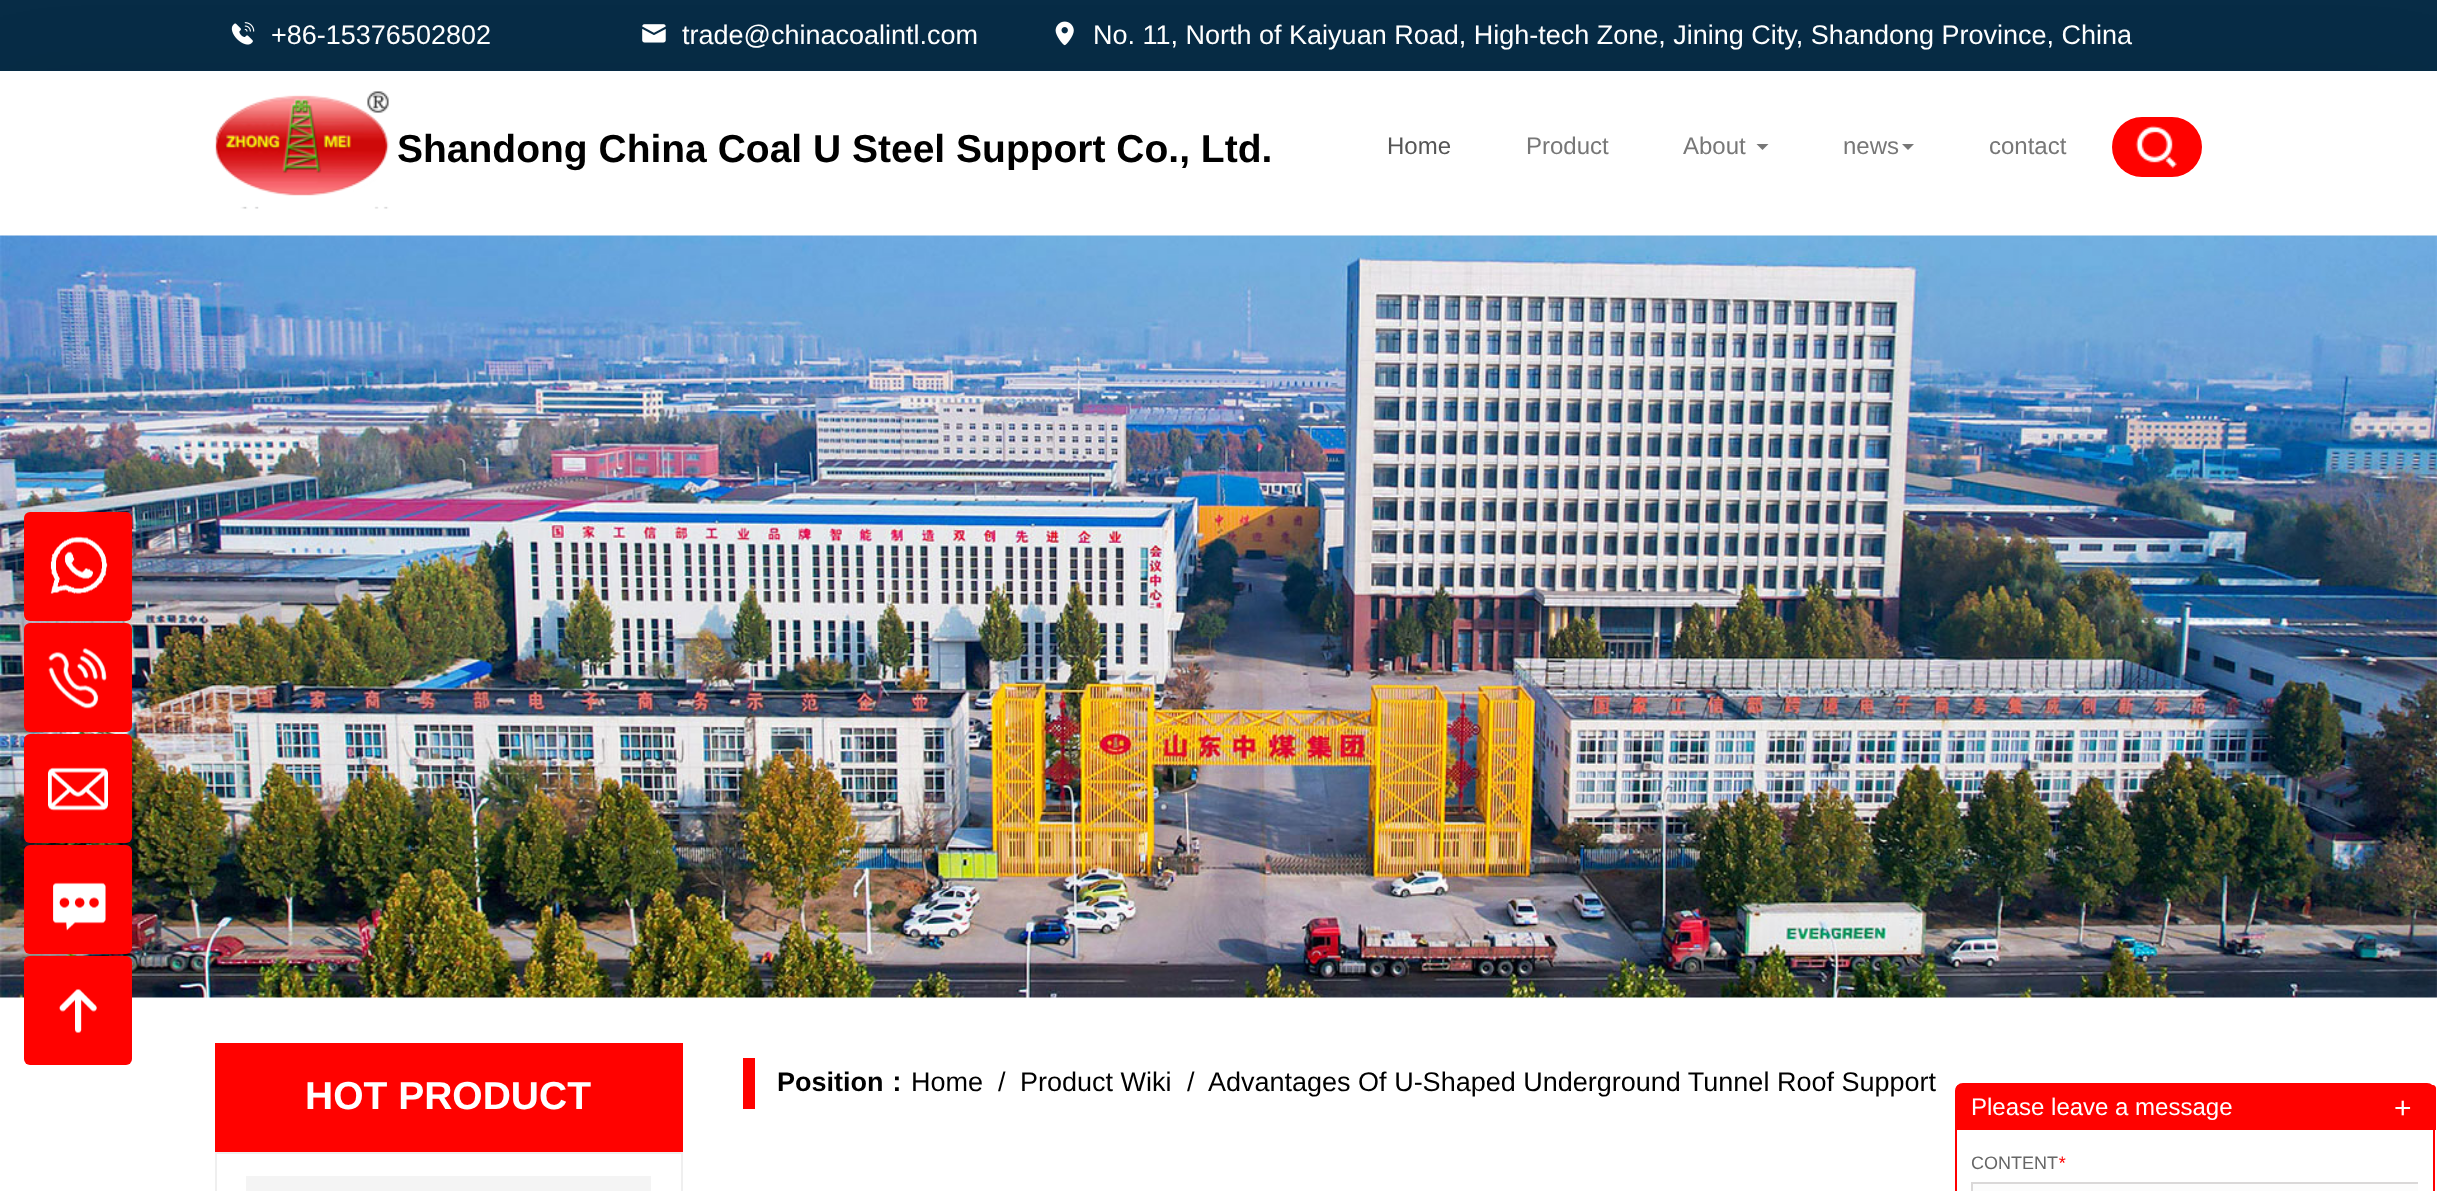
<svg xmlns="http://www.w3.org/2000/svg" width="2437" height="1191">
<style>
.a{font:27px Liberation Sans;fill:#fff}
.b{font:bold 39px Liberation Sans;fill:#000}
.c{font:24px Liberation Sans;fill:#555}
.d{font:24px Liberation Sans;fill:#777}
.e{font:bold 39px Liberation Sans;fill:#fff}
.f{font:bold 27px Liberation Sans;fill:#000}
.g{font:bold 27px WenQuanYi Zen Hei;fill:#000}
.h{font:27px Liberation Sans;fill:#000}
.i{font:24px Liberation Sans;fill:#fff}
.j{font:18px Liberation Sans;fill:#666}
.k{font:italic 18px Liberation Sans;fill:#f00}
.l{font:30px Liberation Sans;fill:#fff}
</style>
<defs>
<clipPath id="clip1"><path d="M1971 1145h447v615H1971z"/></clipPath>
</defs>
<rect width="100%" height="100%" fill="#fff"/>
<path fill="#072c46" d="M0 0h2437v71H0z"/>
<path fill="#00000012" filter="blur(45px)" d="M0 86h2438v165H0z"/>
<image href="1.png" x="231" y="22" width="24" height="23"/>
<image href="2.png" x="642" y="24" width="24" height="19"/>
<image href="3.png" x="1055" y="21" width="19" height="25"/>
<path fill="#fff" d="M0 71h2437v165H0z"/>
<image href="4.png" x="215" y="91" width="174" height="118"/>
<path fill="#777" d="M1756.5 144h12l-6 6z"/>
<path fill="#777" d="M1902 144h12l-6 6z"/>
<rect fill="#ff0200" x="2112" y="117" width="90" height="60" rx="30"/>
<image href="5.png" x="2135" y="125" width="42" height="44"/>
<image href="6.png" x="0" y="235" width="2437" height="763"/>
<rect fill="#ff0200" x="24" y="512" width="108" height="109" rx="6"/>
<image href="7.png" x="50" y="536" width="58" height="58"/>
<rect fill="#ff0200" x="24" y="623" width="108" height="109" rx="6"/>
<image href="8.png" x="48" y="648" width="59" height="61"/>
<rect fill="#ff0200" x="24" y="734" width="108" height="109" rx="6"/>
<image href="9.png" x="48" y="767" width="60" height="44"/>
<rect fill="#ff0200" x="24" y="845" width="108" height="109" rx="6"/>
<image href="10.png" x="53" y="882" width="53" height="49"/>
<rect fill="#ff0200" x="24" y="956" width="108" height="109" rx="6"/>
<image href="11.png" x="59" y="989" width="38" height="44"/>
<path fill="#ff0200" d="M215 1043h468v109H215z"/>
<path fill="none" stroke="#efefef" stroke-width="2" d="M216 1153h466v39H216z"/>
<path fill="#f4f4f4" d="M246 1176h405v15H246z"/>
<path fill="#ff0200" d="M743 1058h12v51H743z"/>
<rect fill="none" stroke="#f00" stroke-width="2" x="1956" y="1084" width="478" height="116" rx="7"/>
<path fill="#ff0200" d="M1959 1085h474c1.5 0 3 1.5 3 3v42h-480v-42c0-1.5 1.5-3 3-3z"/>
<path fill="#fcfcfc" d="M1973 1184h445v7H1973z"/>
<g clip-path="url(#clip1)">
<path fill="none" stroke="#dad8d8" stroke-width="2" d="M1972 1183h460v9H1972z"/>
</g>
<text class="a" x="271" y="44">+86-15376502802</text>
<text class="a" x="682" y="44">trade@chinacoalintl.com</text>
<text class="a" x="1093" y="44">No. 11, North of Kaiyuan Road, High-tech Zone, Jining City, Shandong Province, China</text>
<text class="b" x="397" y="162">Shandong China Coal U Steel Support Co., Ltd.</text>
<text class="c" x="1387" y="154">Home</text>
<text class="d" x="1526" y="154">Product</text>
<text class="d" x="1683" y="154">About</text>
<text class="d" x="1843" y="154">news</text>
<text class="d" x="1989" y="154">contact</text>
<text class="e" x="305" y="1109">HOT PRODUCT</text>
<text class="f" x="777" y="1091">Position</text>
<text class="g" x="883" y="1091">：</text>
<text class="h" x="911" y="1091">Home</text>
<text class="h" x="998" y="1091">/</text>
<text class="h" x="1020" y="1091">Product Wiki</text>
<text class="h" xml:space="preserve" x="1187" y="1091">/  Advantages Of U-Shaped Underground Tunnel Roof Support</text>
<text class="i" x="1971" y="1115">Please leave a message</text>
<text class="j" x="1971" y="1169">CONTENT</text>
<text class="k" x="2058" y="1169">*</text>
<text class="l" x="2394" y="1118">+</text>
</svg>
